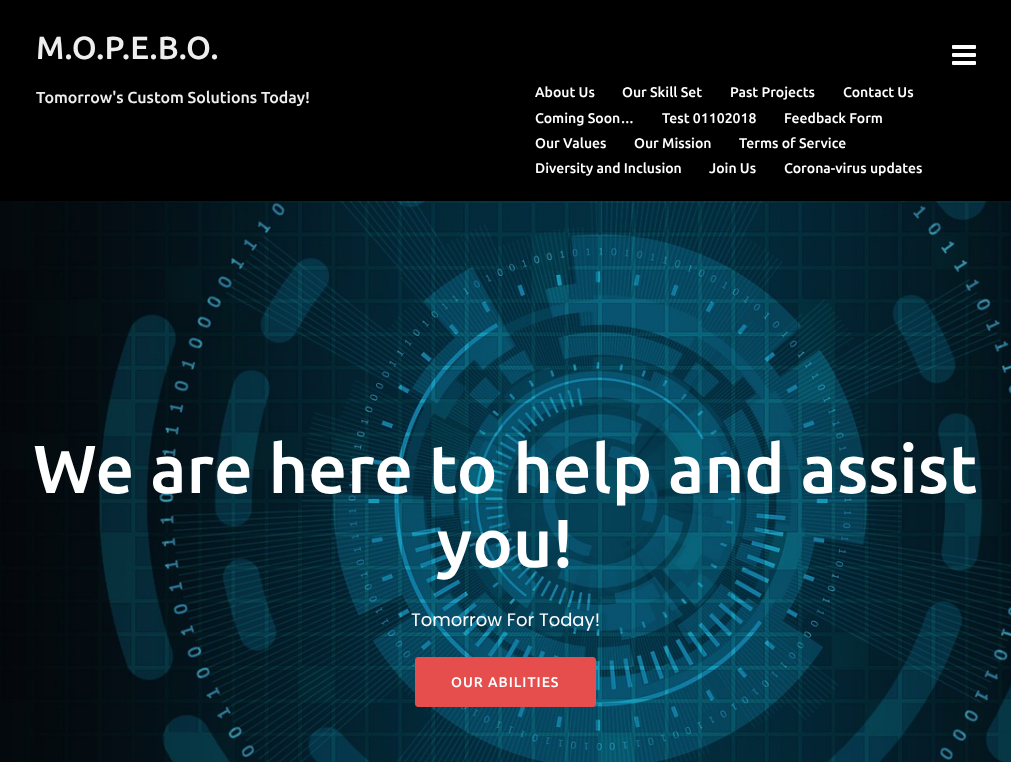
<svg xmlns="http://www.w3.org/2000/svg" width="1011" height="762">
<style>
.a{font:500 32px Ubuntu;fill:#eee}
.b{font:500 16px Ubuntu;fill:#eee}
.c{font:500 14px Ubuntu;fill:#fff}
.d{font:500 68px Ubuntu;fill:#fff}
.e{font:18px Poppins;fill:#fff}
.f{font:500 14px Ubuntu;letter-spacing:1px;fill:#fff}
</style>
<rect width="100%" height="100%" fill="#000"/>
<image href="1.png" x="952" y="45" width="24" height="20"/>
<image href="2.png" x="0" y="201" width="1011" height="561"/>
<rect fill="#e64e4e" stroke="#e64e4e" x="415.5" y="657.5" width="180" height="49" rx="2.5"/>
<text class="a" x="36" y="59">M.O.P.E.B.O.</text>
<text class="b" x="36" y="103">Tomorrow's Custom Solutions Today!</text>
<text class="c" x="535" y="97">About Us</text>
<text class="c" x="622" y="97">Our Skill Set</text>
<text class="c" x="730" y="97">Past Projects</text>
<text class="c" x="843" y="97">Contact Us</text>
<text class="c" x="535" y="123">Coming Soon…</text>
<text class="c" x="662" y="123">Test 01102018</text>
<text class="c" x="784" y="123">Feedback Form</text>
<text class="c" x="535" y="148">Our Values</text>
<text class="c" x="634" y="148">Our Mission</text>
<text class="c" x="739" y="148">Terms of Service</text>
<text class="c" x="535" y="173">Diversity and Inclusion</text>
<text class="c" x="709" y="173">Join Us</text>
<text class="c" x="784" y="173">Corona-virus updates</text>
<text class="d" x="33" y="493">We are here to help and assist</text>
<text class="d" x="437" y="567">you!</text>
<text class="e" x="411" y="626">Tomorrow For Today!</text>
<text class="f" x="451" y="687">OUR ABILITIES</text>
</svg>
